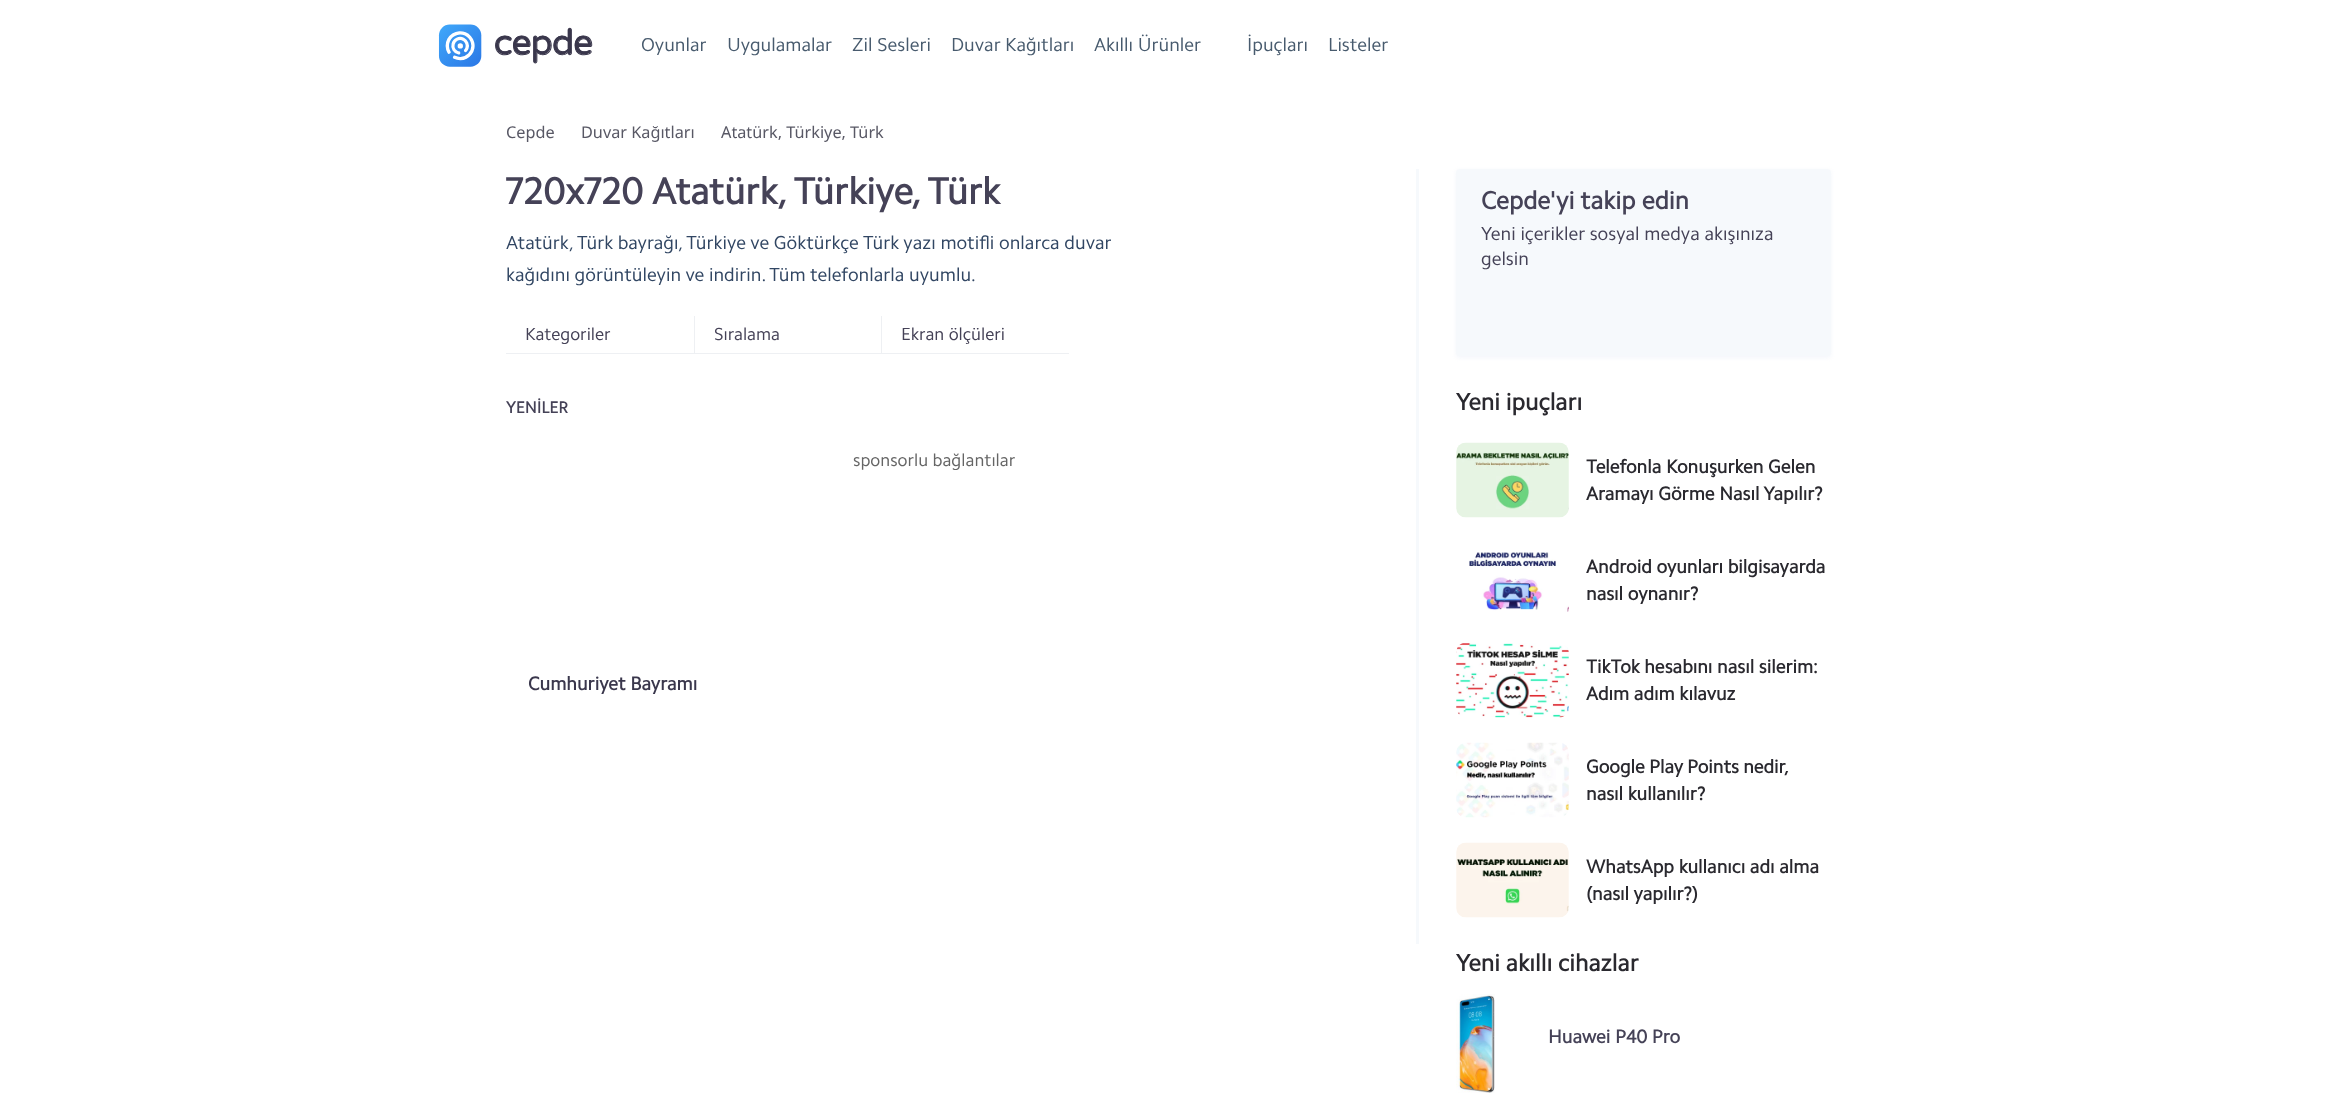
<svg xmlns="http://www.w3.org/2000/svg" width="2337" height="1093">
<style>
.a{font:18.75px 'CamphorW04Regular';fill:#485b6e}
.b{font:16.25px Noto Sans;fill:#585865}
.c{font:bold 37.5px 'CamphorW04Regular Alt';fill:#454257}
.d{font:18.8px 'CamphorW04Regular';fill:#314663}
.e{font:17.5px 'CamphorW04Regular';fill:#454257}
.f{font:bold 16.25px 'CamphorW04Regular';fill:#454257}
.g{font:17.5px 'CamphorW04Regular';fill:#656565}
.h{font:bold 18.75px 'CamphorW04Regular';fill:#3a374c}
.i{font:bold 25px 'CamphorW04Regular';fill:#454257}
.j{font:18.8px 'CamphorW04Regular';fill:#454257}
.k{font:bold 23.75px 'CamphorW04Regular';fill:#2a292f}
.l{font:bold 18.75px 'CamphorW04Regular';fill:#2a292f}
.m{font:bold 18.75px 'CamphorW04Regular';fill:#454257}
</style>
<rect width="100%" height="100%" fill="#fff"/>
<image href="1.png" x="438" y="24" width="155" height="43"/>
<path fill="#f6f9fc" d="M1416 169h3v775H1416z"/>
<path fill="#eef0f3" d="M506 353h563v1H506z"/>
<path fill="#eef0f3" d="M694 316h1v38H694z"/>
<path fill="#eef0f3" d="M881 316h1v38H881z"/>
<rect fill="#9ba9dc1c" filter="blur(2px)" x="1456" y="170" width="375" height="188" rx="4"/>
<rect fill="#f6f9fc" x="1456" y="169" width="375" height="187" rx="4"/>
<image href="2.png" x="1456" y="442" width="113" height="76"/>
<image href="3.png" x="1469" y="552" width="100" height="60"/>
<image href="4.png" x="1456" y="643" width="113" height="75"/>
<image href="5.png" x="1456" y="742" width="113" height="76"/>
<image href="6.png" x="1456" y="842" width="113" height="76"/>
<image href="7.png" x="1456" y="994" width="39" height="99"/>
<text class="a" x="641" y="51">Oyunlar</text>
<text class="a" x="727" y="51">Uygulamalar</text>
<text class="a" x="852" y="51">Zil Sesleri</text>
<text class="a" x="951" y="51">Duvar Kağıtları</text>
<text class="a" x="1094" y="51">Akıllı Ürünler</text>
<text class="a" x="1247" y="51">İpuçları</text>
<text class="a" x="1328" y="51">Listeler</text>
<text class="b" x="506" y="138">Cepde</text>
<text class="b" x="581" y="138">Duvar Kağıtları</text>
<text class="b" x="721" y="138">Atatürk, Türkiye, Türk</text>
<text class="c" x="506" y="204">720x720 Atatürk, Türkiye, Türk</text>
<text class="d" x="506" y="249">Atatürk, Türk bayrağı, Türkiye ve Göktürkçe Türk yazı motifli onlarca duvar</text>
<text class="d" x="506" y="281">kağıdını görüntüleyin ve indirin. Tüm telefonlarla uyumlu.</text>
<text class="e" x="525" y="340">Kategoriler</text>
<text class="e" x="714" y="340">Sıralama</text>
<text class="e" x="901" y="340">Ekran ölçüleri</text>
<text class="f" x="506" y="413">YENİLER</text>
<text class="g" x="853" y="466">sponsorlu bağlantılar</text>
<text class="h" x="528" y="690">Cumhuriyet Bayramı</text>
<text class="i" x="1481" y="209">Cepde'yi takip edin</text>
<text class="j" x="1481" y="240">Yeni içerikler sosyal medya akışınıza</text>
<text class="j" x="1481" y="265">gelsin</text>
<text class="k" x="1456" y="410">Yeni ipuçları</text>
<text class="l" x="1586" y="473">Telefonla Konuşurken Gelen</text>
<text class="l" x="1586" y="500">Aramayı Görme Nasıl Yapılır?</text>
<text class="l" x="1586" y="573">Android oyunları bilgisayarda</text>
<text class="l" x="1586" y="600">nasıl oynanır?</text>
<text class="l" x="1586" y="673">TikTok hesabını nasıl silerim:</text>
<text class="l" x="1586" y="700">Adım adım kılavuz</text>
<text class="l" x="1586" y="773" word-spacing="-0.5">Google Play Points nedir,</text>
<text class="l" x="1586" y="800">nasıl kullanılır?</text>
<text class="l" x="1586" y="873">WhatsApp kullanıcı adı alma</text>
<text class="l" x="1586" y="900">(nasıl yapılır?)</text>
<text class="k" x="1456" y="971">Yeni akıllı cihazlar</text>
<text class="m" x="1548" y="1043">Huawei P40 Pro</text>
</svg>
